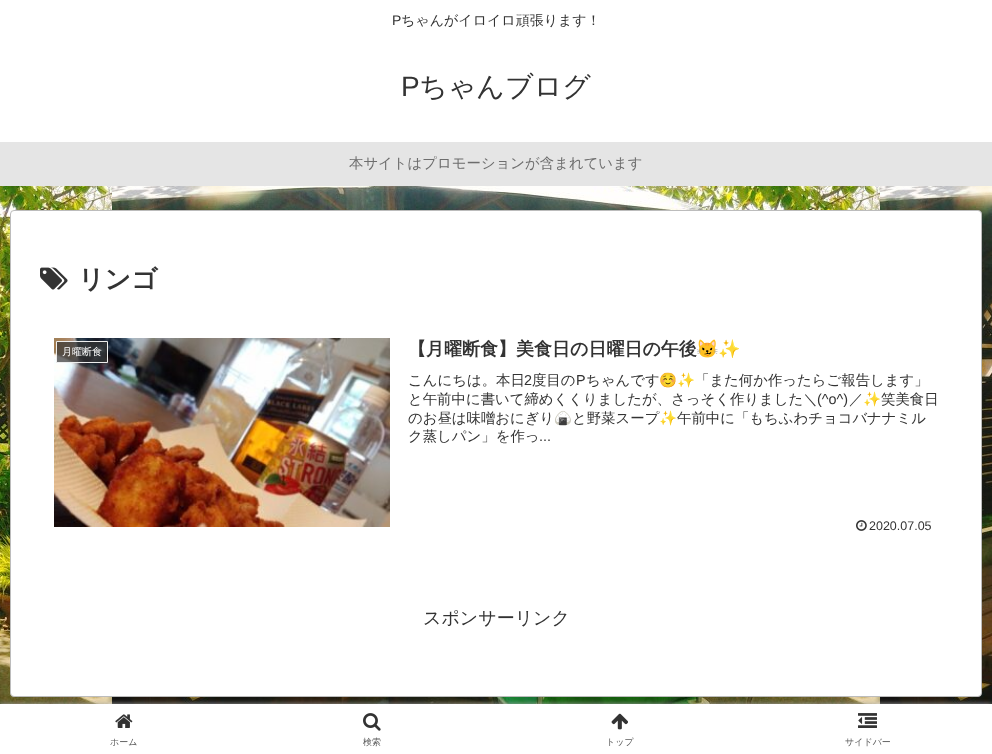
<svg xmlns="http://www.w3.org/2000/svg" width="992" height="754">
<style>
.a{font:14px Liberation Sans;fill:#333}
.b{font:500 14px WenQuanYi Zen Hei;fill:#333}
.c{font:28px Liberation Sans;fill:#333}
.d{font:500 28px WenQuanYi Zen Hei;fill:#333}
.e{font:500 14.4px WenQuanYi Zen Hei;fill:#6d6d6d}
.f{font:bold 26px WenQuanYi Zen Hei;fill:#333}
.g{font:500 10px WenQuanYi Zen Hei;fill:#fff}
.h{font:bold 18px WenQuanYi Zen Hei;fill:#333}
.i{font:bold 18px Noto Color Emoji;fill:#333}
.j{font:500 14.4px WenQuanYi Zen Hei;fill:#333}
.k{font:14.4px Liberation Sans;fill:#333}
.l{font:14.4px Noto Color Emoji;fill:#333}
.m{font:12.5px Liberation Sans;fill:#333}
.n{font:500 18px WenQuanYi Zen Hei;fill:#333}
.o{font:500 9px WenQuanYi Zen Hei;fill:#5c5c5c}
</style>
<rect width="100%" height="100%" fill="#fff"/>
<image href="1.png" x="0" y="186" width="992" height="518"/>
<path fill="#e5e5e5" d="M0 142h992v44H0z"/>
<rect fill="#fff" stroke="#bcbcbc" x="10.5" y="210.5" width="971" height="486" rx="3.5"/>
<image href="2.png" x="40" y="267" width="28" height="23"/>
<image href="3.png" x="54" y="338" width="336" height="189"/>
<path fill="#333333b3" stroke="#eee" d="M56.5 341.5h51v21H56.5z"/>
<image href="4.png" x="856" y="520" width="11" height="11"/>
<path fill="#a9a9a9" filter="blur(2.5px)" d="M0 704h992v50H0z"/>
<path fill="#fff" d="M0 704h992v50H0z"/>
<image href="5.png" x="115" y="714" width="18" height="14"/>
<image href="6.png" x="363" y="713" width="18" height="18"/>
<image href="7.png" x="611" y="713" width="17" height="17"/>
<image href="8.png" x="858" y="713" width="19" height="15"/>
<text class="a" x="392" y="25">P</text>
<text class="b" x="401" y="25">ちゃんがイロイロ頑張ります！</text>
<text class="c" x="401" y="96">P</text>
<text class="d" x="419" y="96">ちゃんブログ</text>
<text class="e" x="349" y="168">本サイトはプロモーションが含まれています</text>
<text class="f" x="78" y="288">リンゴ</text>
<text class="g" x="62" y="355">月曜断食</text>
<text class="h" x="408" y="355">【月曜断食】美食日の日曜日の午後</text>
<text class="i" x="696" y="355">😼✨</text>
<text class="j" x="408" y="385">こんにちは。本日</text>
<text class="k" x="524" y="385">2</text>
<text class="j" x="532" y="385">度目の</text>
<text class="k" x="576" y="385">P</text>
<text class="j" x="586" y="385">ちゃんです</text>
<text class="l" x="659" y="385">☺️✨</text>
<text class="j" x="695" y="385">「また何か作ったらご報告します」</text>
<text class="j" x="408" y="404">と午前中に書いて締めくくりましたが、さっそく作りました＼</text>
<text class="k" x="817" y="404">(^o^)</text>
<text class="j" x="849" y="404">／</text>
<text class="l" x="863" y="404">✨</text>
<text class="j" x="881" y="404">笑美食日</text>
<text class="j" x="408" y="423">のお昼は味噌おにぎり</text>
<text class="l" x="554" y="423">🍙</text>
<text class="j" x="572" y="423">と野菜スープ</text>
<text class="l" x="659" y="423">✨</text>
<text class="j" x="677" y="423">午前中に「もちふわチョコバナナミル</text>
<text class="j" x="408" y="441">ク蒸しパン」を作っ</text>
<text class="k" x="539" y="441">...</text>
<text class="m" x="869" y="530">2020.07.05</text>
<text class="n" x="423" y="624">スポンサーリンク</text>
<text class="o" x="110" y="745">ホーム</text>
<text class="o" x="363" y="745">検索</text>
<text class="o" x="606" y="745">トップ</text>
<text class="o" x="845" y="745">サイドバー</text>
</svg>
